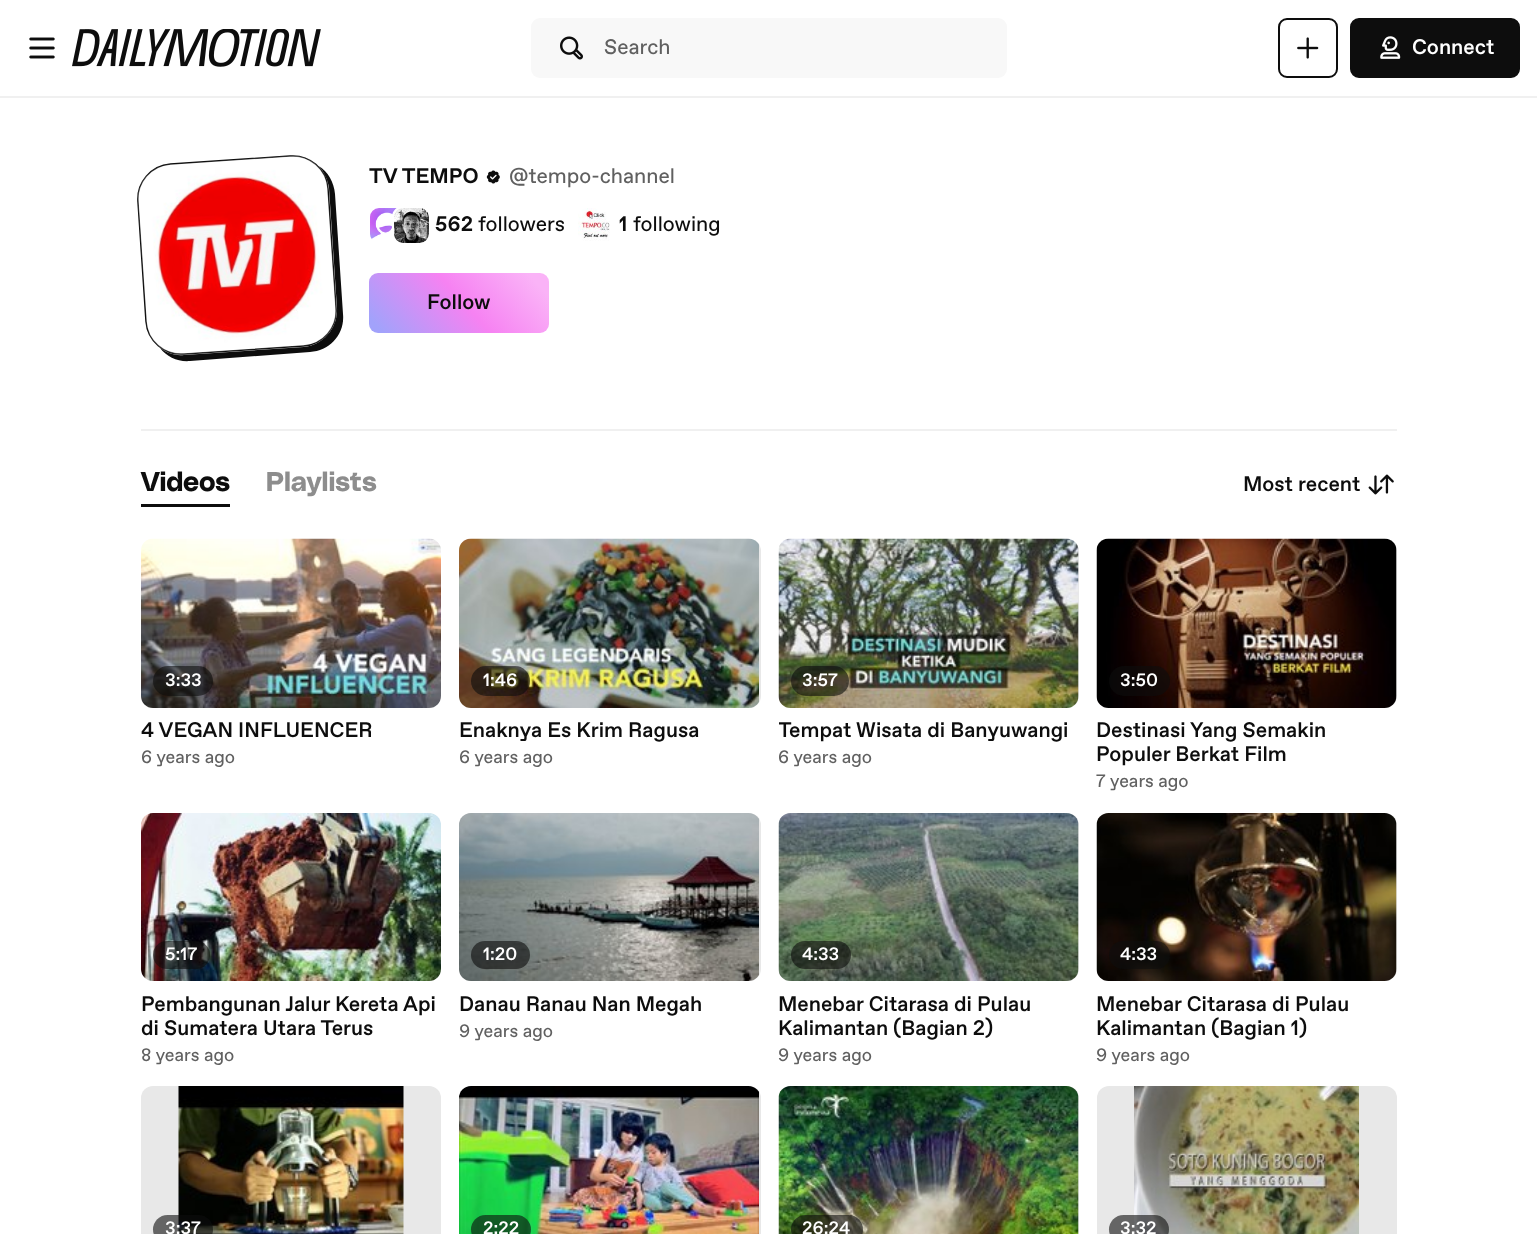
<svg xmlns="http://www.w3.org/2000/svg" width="1537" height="1234">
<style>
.a{font:21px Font;fill:#606060}
.b{font:500 21px Font;fill:#fff}
.c{font:bold 21px Font;fill:#0d0d0d}
.d{font:21px Font;fill:#0d0d0d}
.e{font:500 21px Font;fill:#0d0d0d}
.f{font:bold 27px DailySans;letter-spacing:0.25px;fill:#0d0d0d}
.g{font:bold 27px DailySans;letter-spacing:0.25px;fill:#8d8d8d}
.h{font:500 18px Font;fill:#fff}
.i{font:18px Font;fill:#606060}
</style>
<defs>
<linearGradient id="g1" gradientUnits="userSpaceOnUse" x1="524" y1="245" x2="394" y2="361"><stop offset="0.09" stop-color="#fab3f7"/><stop offset="0.48" stop-color="#f682f2"/><stop offset="0.94" stop-color="#a2a2fb"/></linearGradient>
<clipPath id="clip1"><path d="M779 720h300v24H779z"/></clipPath>
<clipPath id="clip2"><path d="M779 744h288v27H779z"/></clipPath>
</defs>
<rect width="100%" height="100%" fill="#fff"/>
<path fill="#f0f0f0" d="M0 96h1537v2H0z"/>
<image href="1.png" x="29" y="37" width="26" height="22"/>
<image href="2.png" x="72" y="29" width="249" height="38"/>
<rect fill="#f8f8f8" x="531" y="18" width="476" height="60" rx="9"/>
<image href="3.png" x="560" y="36" width="23" height="24"/>
<rect fill="none" stroke="#0d0d0d" stroke-width="2" x="1279" y="19" width="58" height="58" rx="8"/>
<image href="4.png" x="1297" y="37" width="22" height="22"/>
<rect fill="#0d0d0d" stroke="#0d0d0d" stroke-width="2" x="1351" y="19" width="168" height="58" rx="8"/>
<image href="5.png" x="1380" y="36" width="21" height="23"/>
<path fill="#f0f0f0" d="M141 429h1256v2H141z"/>
<path fill="#0d0d0d" d="M160 348c7 9 18 14 30 13l120-9c20-1 35-18 33-38l-8-120c-1-12-7-22-16-28c5 6 9 14 10 22l8 120c1 20-14 37-33 39l-120 8c-9 1-17-2-24-7z"/>
<path fill="none" stroke="#0d0d0d" stroke-width="1.5" d="M170.5 164l119.5-8c19.5-1.5 36.5 13 38 32.5l8 119.5c1.5 19.5-13 36.5-32.5 38l-119.5 8c-19.5 1.5-36.5-13-38-32.5l-8-119.5c-1.5-19.5 13-36.5 32.5-38z"/>
<image href="6.png" x="137" y="155" width="200" height="200"/>
<image href="7.png" x="486" y="170" width="14" height="14"/>
<image href="8.png" x="369" y="207" width="28" height="33"/>
<rect fill="none" stroke="#fff" stroke-width="2" x="369" y="207" width="37" height="37" rx="10"/>
<image href="9.png" x="393" y="207" width="36" height="36"/>
<rect fill="none" stroke="#fff" stroke-width="2" x="393" y="207" width="37" height="37" rx="10"/>
<image href="10.png" x="578" y="207" width="32" height="34"/>
<rect fill="none" stroke="#fff" stroke-width="2" x="577" y="207" width="37" height="37" rx="10"/>
<rect fill="url(#g1)" x="369" y="273" width="180" height="60" rx="9"/>
<path fill="#0d0d0d" d="M141 504v3h89v-37v34z"/>
<image href="11.png" x="1368" y="474" width="26" height="21"/>
<image href="12.png" x="141" y="538" width="300" height="170"/>
<rect fill="#0d0d0d99" x="153" y="666" width="60" height="30" rx="15"/>
<rect fill="#e8e8e8" x="459" y="539" width="302" height="169" rx="12"/>
<image href="13.png" x="459" y="538" width="300" height="170"/>
<rect fill="#0d0d0d99" x="471" y="666" width="59" height="30" rx="15"/>
<rect fill="#e8e8e8" x="779" y="539" width="300" height="169" rx="12"/>
<image href="14.png" x="778" y="538" width="301" height="170"/>
<rect fill="#0d0d0d99" x="791" y="666" width="58" height="30" rx="15"/>
<rect fill="#e8e8e8" x="1097" y="539" width="300" height="169" rx="12"/>
<image href="15.png" x="1096" y="538" width="301" height="170"/>
<rect fill="#0d0d0d99" x="1109" y="666" width="61" height="30" rx="15"/>
<image href="16.png" x="141" y="813" width="300" height="168"/>
<rect fill="#0d0d0d99" x="153" y="941" width="57" height="28" rx="14"/>
<rect fill="#e8e8e8" x="459" y="813" width="302" height="168" rx="12"/>
<image href="17.png" x="459" y="813" width="300" height="168"/>
<rect fill="#0d0d0d99" x="471" y="941" width="59" height="28" rx="14"/>
<rect fill="#e8e8e8" x="779" y="813" width="300" height="168" rx="12"/>
<image href="18.png" x="778" y="813" width="301" height="168"/>
<rect fill="#0d0d0d99" x="791" y="941" width="60" height="28" rx="14"/>
<rect fill="#e8e8e8" x="1097" y="813" width="300" height="168" rx="12"/>
<image href="19.png" x="1096" y="813" width="301" height="168"/>
<rect fill="#0d0d0d99" x="1109" y="941" width="61" height="28" rx="14"/>
<rect fill="#e8e8e8" x="141" y="1086" width="300" height="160" rx="12"/>
<image href="20.png" x="178" y="1086" width="226" height="148"/>
<rect fill="#0d0d0d99" x="153" y="1215" width="60" height="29" rx="14.5"/>
<rect fill="#e8e8e8" x="459" y="1086" width="302" height="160" rx="12"/>
<image href="21.png" x="459" y="1086" width="300" height="148"/>
<rect fill="#0d0d0d99" x="471" y="1215" width="60" height="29" rx="14.5"/>
<rect fill="#e8e8e8" x="779" y="1086" width="300" height="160" rx="12"/>
<image href="22.png" x="778" y="1086" width="301" height="148"/>
<rect fill="#0d0d0d99" x="791" y="1215" width="72" height="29" rx="14.5"/>
<rect fill="#e8e8e8" x="1097" y="1086" width="300" height="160" rx="12"/>
<image href="23.png" x="1134" y="1086" width="225" height="148"/>
<rect fill="#0d0d0d99" x="1109" y="1215" width="60" height="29" rx="14.5"/>
<text class="a" x="604" y="54">Search</text>
<text class="b" x="1412" y="54">Connect</text>
<text class="c" x="369" y="183">TV TEMPO</text>
<text class="a" x="509" y="183">@tempo-channel</text>
<text class="c" x="435" y="231">562</text>
<text class="d" x="478" y="231">followers</text>
<text class="c" x="619" y="231">1</text>
<text class="d" x="633" y="231">following</text>
<text class="e" x="427" y="309">Follow</text>
<text class="f" x="141" y="491">Videos</text>
<text class="g" x="266" y="491">Playlists</text>
<text class="e" x="1243" y="491">Most recent</text>
<text class="h" x="165" y="686">3:33</text>
<text class="e" x="141" y="737">4 VEGAN INFLUENCER</text>
<text class="i" x="141" y="763">6 years ago</text>
<text class="h" x="483" y="686">1:46</text>
<text class="e" x="459" y="737">Enaknya Es Krim Ragusa</text>
<text class="i" x="459" y="763">6 years ago</text>
<text class="h" x="802" y="686">3:57</text>
<g clip-path="url(#clip1)">
<text class="e" x="778" y="737">Tempat Wisata di Banyuwangi</text>
</g>
<g clip-path="url(#clip2)">
<text class="i" x="778" y="763">6 years ago</text>
</g>
<text class="h" x="1120" y="686">3:50</text>
<text class="e" x="1096" y="737">Destinasi Yang Semakin</text>
<text class="e" x="1096" y="761">Populer Berkat Film</text>
<text class="i" x="1096" y="787">7 years ago</text>
<text class="h" x="165" y="960">5:17</text>
<text class="e" x="141" y="1011">Pembangunan Jalur Kereta Api</text>
<text class="e" x="141" y="1035">di Sumatera Utara Terus</text>
<text class="i" x="141" y="1061">8 years ago</text>
<text class="h" x="483" y="960">1:20</text>
<text class="e" x="459" y="1011">Danau Ranau Nan Megah</text>
<text class="i" x="459" y="1037">9 years ago</text>
<text class="h" x="802" y="960">4:33</text>
<text class="e" x="778" y="1011">Menebar Citarasa di Pulau</text>
<text class="e" x="778" y="1035">Kalimantan (Bagian 2)</text>
<text class="i" x="778" y="1061">9 years ago</text>
<text class="h" x="1120" y="960">4:33</text>
<text class="e" x="1096" y="1011">Menebar Citarasa di Pulau</text>
<text class="e" x="1096" y="1035">Kalimantan (Bagian 1)</text>
<text class="i" x="1096" y="1061">9 years ago</text>
<text class="h" x="165" y="1234">3:37</text>
<text class="h" x="483" y="1234">2:22</text>
<text class="h" x="802" y="1234">26:24</text>
<text class="h" x="1120" y="1234">3:32</text>
</svg>
